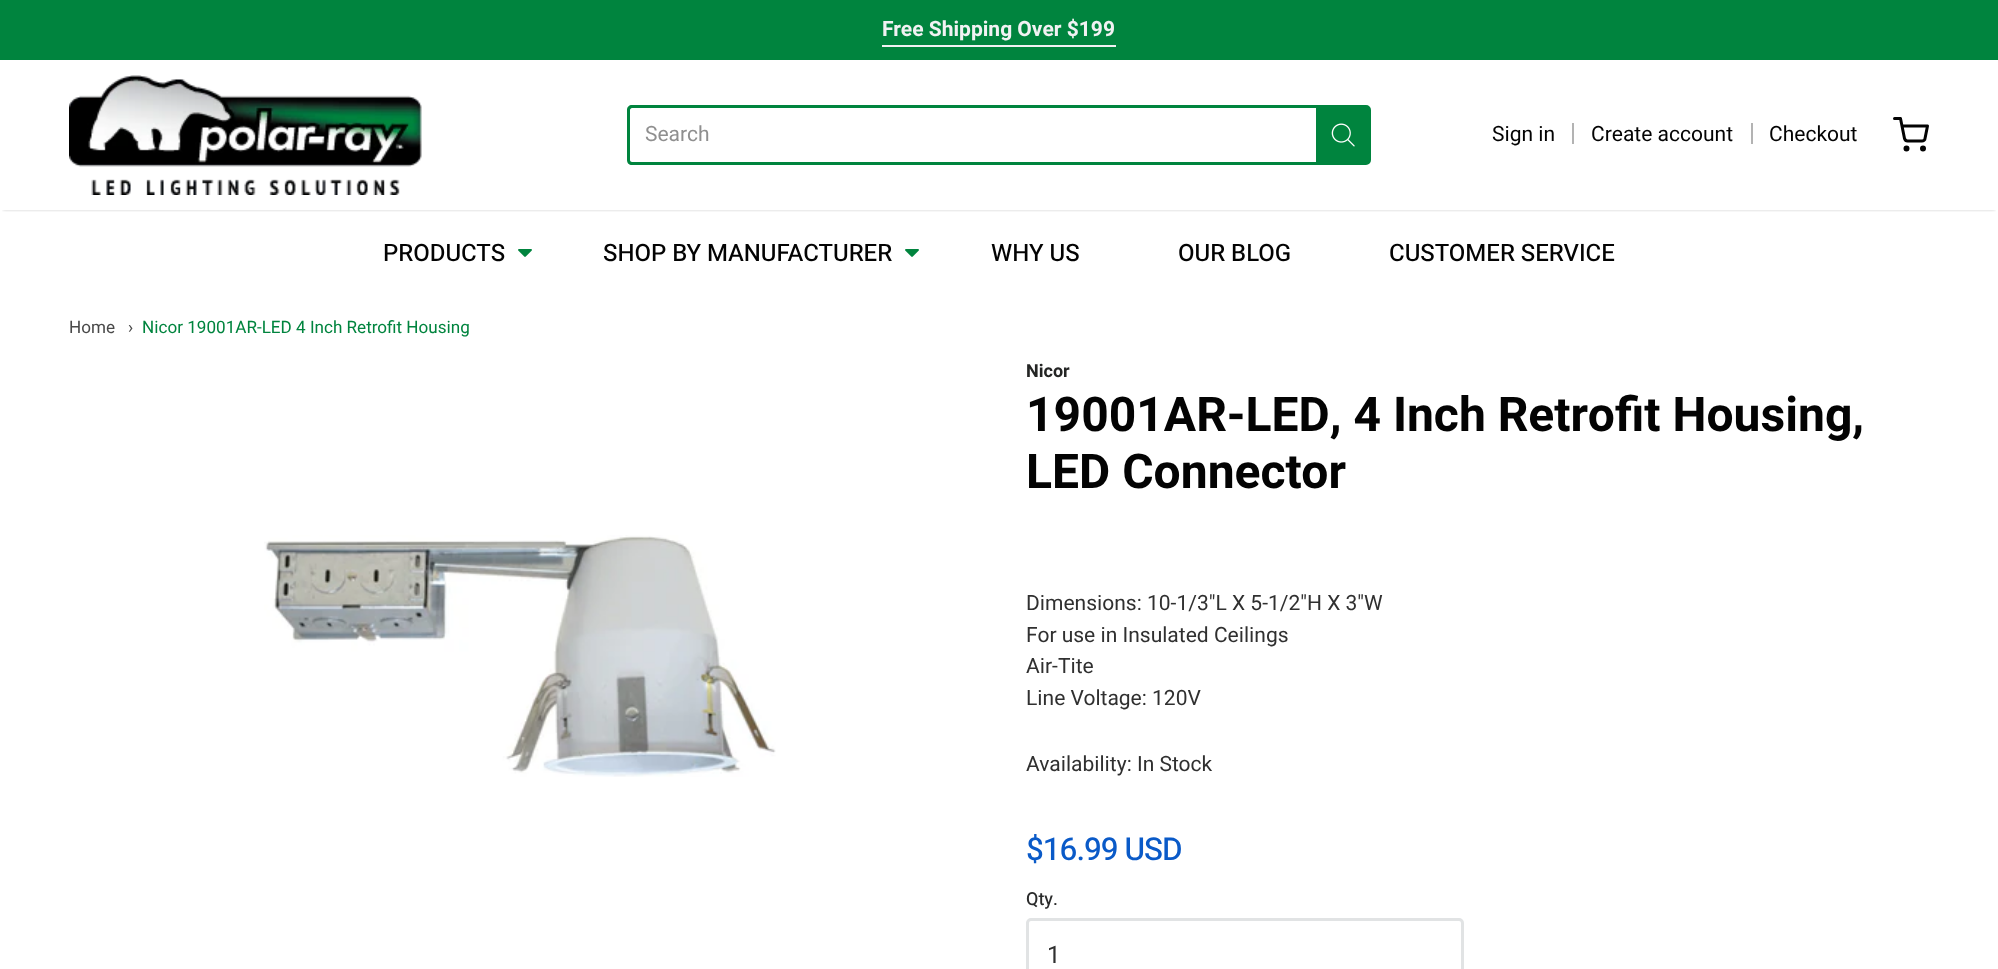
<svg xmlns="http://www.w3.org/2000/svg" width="1998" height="969">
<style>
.a{font:bold 21px Heebo;fill:#f1f2f3}
.b{font:21px Heebo;fill:#8f8f8f}
.c{font:21px Heebo;fill:#030303}
.d{font:500 24px Heebo;fill:#030303}
.e{font:17.1px Heebo;fill:#494949}
.f{font:17.1px Heebo;fill:#00843e}
.g{font:bold 18px Heebo;fill:#242524}
.h{font:bold 48px Heebo;fill:#030303}
.i{font:21px Heebo;fill:#303030}
.j{font:500 31.5px Heebo;letter-spacing:-1px;fill:#0a5ac8}
.k{font:500 18px Heebo;fill:#2a2b2b}
.l{font:24px Heebo;fill:#303030}
</style>
<defs>
<clipPath id="clip1"><path d="M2 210h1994v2H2z"/></clipPath>
</defs>
<rect width="100%" height="100%" fill="#fff"/>
<path fill="#00843e" d="M0 0h1998v60H0z"/>
<path fill="#f1f2f3" d="M882 45h234v2H882z"/>
<g clip-path="url(#clip1)">
<path fill="#00000033" filter="blur(1.5px)" d="M3 66h1992v144H3z"/>
</g>
<image href="1.png" x="69" y="75" width="353" height="120"/>
<path fill="#00843e" fill-rule="evenodd" d="M632 105h684v60h-684c-3 0-5-2-5-5v-50c0-3 2-5 5-5zm0 3h684v54h-684c-1 0-2-1-2-2v-50c0-1 1-2 2-2z"/>
<path fill="#00843e" stroke="#00843e" stroke-width="3" d="M1317.5 106.5h48.5c2 0 3.5 1.5 3.5 3.5v50c0 2-1.5 3.5-3.5 3.5h-48.5z"/>
<image href="2.png" x="1331" y="123" width="24" height="24"/>
<path fill="#b3b3b3" d="M1572 123h2v21H1572z"/>
<path fill="#b3b3b3" d="M1751 123h2v21H1751z"/>
<path fill="none" stroke="#030303" stroke-width="3" stroke-linecap="round" stroke-linejoin="round" d="M1894.5 118.5h6l4 20c.5 1.5 1.5 2.5 3 2.5h14.5c1.5 0 3-1 3-2.5l2.5-12.5h-25.5"/>
<circle fill="none" stroke="#030303" stroke-width="3" cx="1906.5" cy="148.5" r="1.5"/>
<circle fill="none" stroke="#030303" stroke-width="3" cx="1923" cy="148.5" r="1.5"/>
<image href="3.png" x="518" y="249" width="14" height="8"/>
<image href="3.png" x="905" y="249" width="14" height="8"/>
<image href="4.png" x="264" y="535" width="512" height="242"/>
<rect fill="none" stroke="#e1e3e4" stroke-width="3" x="1027.5" y="919.5" width="435" height="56" rx="3.5"/>
<text class="a" x="882" y="36">Free Shipping Over $199</text>
<text class="b" x="645" y="141">Search</text>
<text class="c" x="1492" y="141">Sign in</text>
<text class="c" x="1591" y="141">Create account</text>
<text class="c" x="1769" y="141">Checkout</text>
<text class="d" x="383" y="261">PRODUCTS</text>
<text class="d" x="603" y="261">SHOP BY MANUFACTURER</text>
<text class="d" x="991" y="261">WHY US</text>
<text class="d" x="1178" y="261">OUR BLOG</text>
<text class="d" x="1389" y="261">CUSTOMER SERVICE</text>
<text class="e" x="69" y="333">Home</text>
<text class="e" x="128" y="333">›</text>
<text class="f" x="142" y="333">Nicor 19001AR-LED 4 Inch Retrofit Housing</text>
<text class="g" x="1026" y="377">Nicor</text>
<text class="h" x="1026" y="431">19001AR-LED, 4 Inch Retrofit Housing,</text>
<text class="h" x="1026" y="488">LED Connector</text>
<text class="i" x="1026" y="610">Dimensions: 10-1/3"L X 5-1/2"H X 3"W</text>
<text class="i" x="1026" y="642">For use in Insulated Ceilings</text>
<text class="i" x="1026" y="673">Air-Tite</text>
<text class="i" x="1026" y="705">Line Voltage: 120V</text>
<text class="i" x="1026" y="771">Availability: In Stock</text>
<text class="j" x="1026" y="860">$16.99 USD</text>
<text class="k" x="1026" y="905">Qty.</text>
<text class="l" x="1047" y="963">1</text>
</svg>
